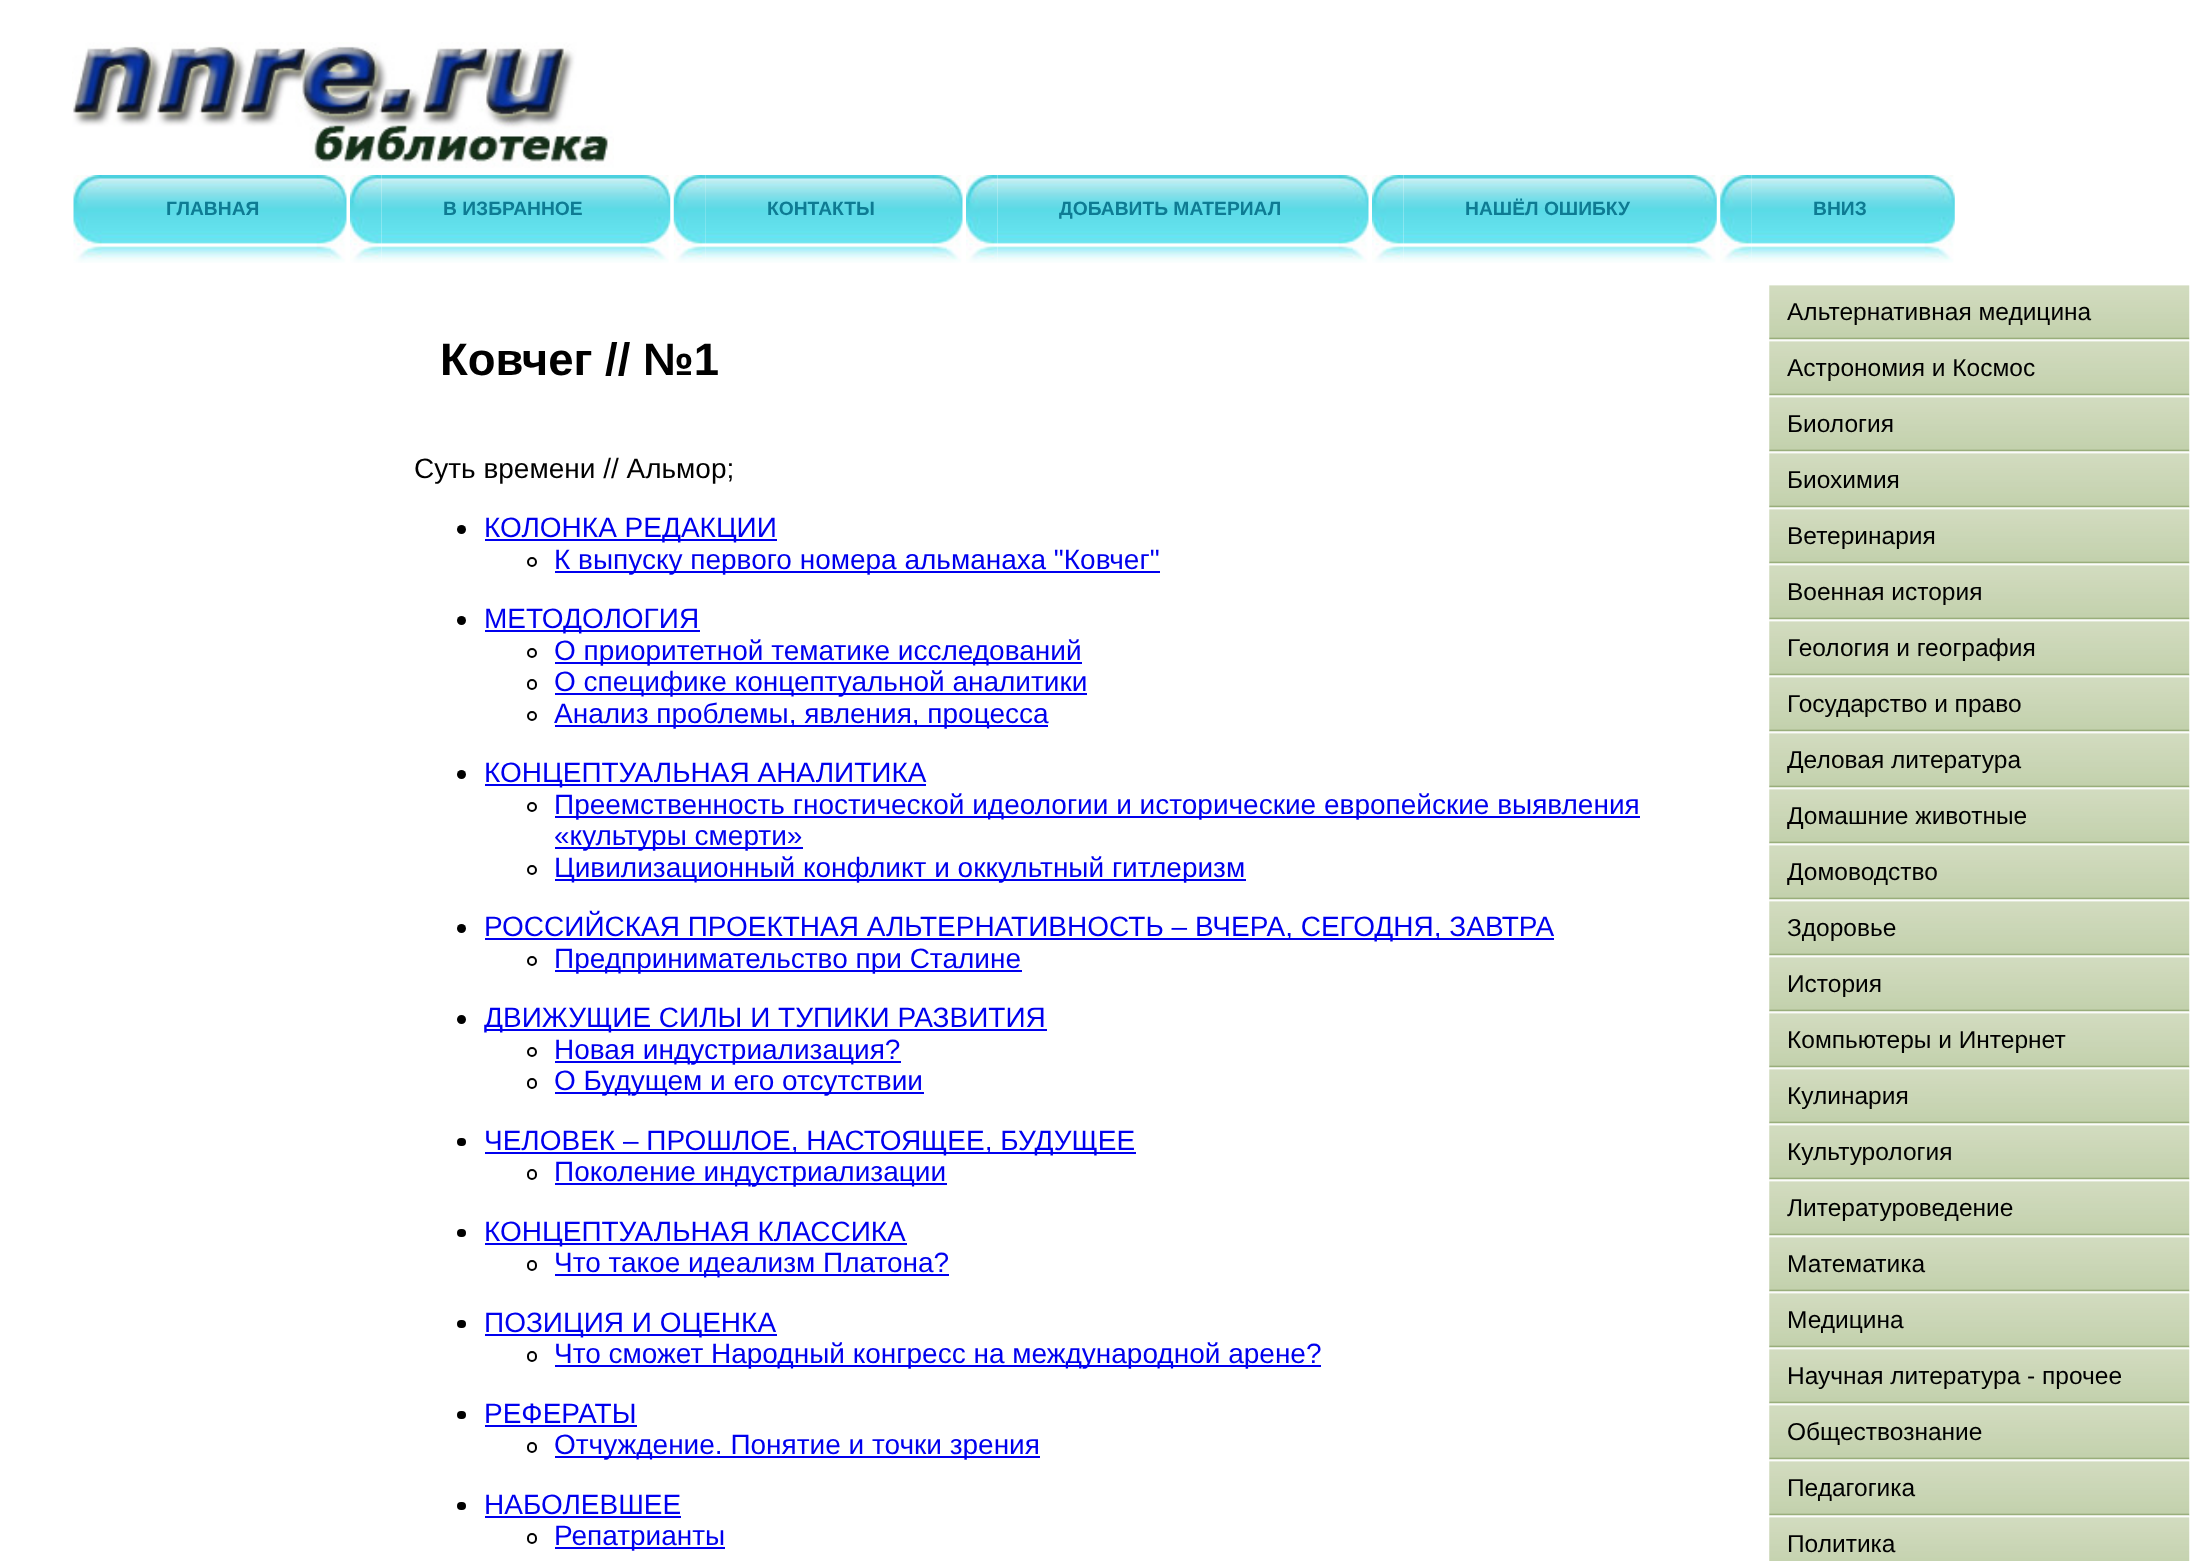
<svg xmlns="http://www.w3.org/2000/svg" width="2208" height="1561">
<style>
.a{font:bold 19.25px Liberation Sans;fill:#0e7b93}
.b{font:bold 45.5px Liberation Sans;fill:#000}
.c{font:28px Liberation Sans;fill:#000}
.d{font:28px Liberation Sans;fill:#00e}
.e{font:24.5px Liberation Sans;fill:#000}
</style>
<rect width="100%" height="100%" fill="#fff"/>
<image href="1.png" x="72" y="42" width="542" height="126"/>
<image href="2.png" x="73" y="175" width="32" height="88"/>
<image href="3.png" x="105" y="175" width="242" height="88"/>
<image href="4.png" x="350" y="175" width="32" height="88"/>
<image href="5.png" x="381" y="175" width="290" height="88"/>
<image href="6.png" x="673" y="175" width="33" height="88"/>
<image href="7.png" x="705" y="175" width="258" height="88"/>
<image href="4.png" x="966" y="175" width="32" height="88"/>
<image href="8.png" x="997" y="175" width="372" height="88"/>
<image href="4.png" x="1372" y="175" width="32" height="88"/>
<image href="9.png" x="1403" y="175" width="314" height="88"/>
<image href="10.png" x="1720" y="175" width="32" height="88"/>
<image href="11.png" x="1751" y="175" width="204" height="88"/>
<circle fill="#000" cx="461.5" cy="529.5" r="4.5"/>
<path fill="#00e" d="M485 539h292v2H485z"/>
<circle fill="none" stroke="#000" stroke-width="2" cx="532" cy="562" r="4"/>
<path fill="#00e" d="M555 571h605v2H555z"/>
<circle fill="#000" cx="461.5" cy="620.5" r="4.5"/>
<path fill="#00e" d="M485 630h215v2H485z"/>
<circle fill="none" stroke="#000" stroke-width="2" cx="532" cy="653" r="4"/>
<path fill="#00e" d="M555 662h527v2H555z"/>
<rect fill="none" stroke="#000" stroke-width="2" x="528" y="680" width="8" height="9" rx="4"/>
<path fill="#00e" d="M555 693h532v2H555z"/>
<circle fill="none" stroke="#000" stroke-width="2" cx="532" cy="716" r="4"/>
<path fill="#00e" d="M555 725h493v2H555z"/>
<circle fill="#000" cx="461.5" cy="774.5" r="4.5"/>
<path fill="#00e" d="M485 784h441v2H485z"/>
<circle fill="none" stroke="#000" stroke-width="2" cx="532" cy="807" r="4"/>
<path fill="#00e" d="M555 816h1085v2H555z"/>
<path fill="#00e" d="M555 847h248v2H555z"/>
<circle fill="none" stroke="#000" stroke-width="2" cx="532" cy="870" r="4"/>
<path fill="#00e" d="M555 879h691v2H555z"/>
<circle fill="#000" cx="461.5" cy="928.5" r="4.5"/>
<path fill="#00e" d="M485 938h1069v2H485z"/>
<circle fill="none" stroke="#000" stroke-width="2" cx="532" cy="961" r="4"/>
<path fill="#00e" d="M555 970h467v2H555z"/>
<circle fill="#000" cx="461.5" cy="1019.5" r="4.5"/>
<path fill="#00e" d="M485 1029h562v2H485z"/>
<circle fill="none" stroke="#000" stroke-width="2" cx="532" cy="1052" r="4"/>
<path fill="#00e" d="M555 1061h346v2H555z"/>
<rect fill="none" stroke="#000" stroke-width="2" x="528" y="1079" width="8" height="9" rx="4"/>
<path fill="#00e" d="M555 1092h369v2H555z"/>
<rect fill="#000" x="457" y="1138" width="9" height="8" rx="4"/>
<path fill="#00e" d="M485 1152h651v2H485z"/>
<rect fill="none" stroke="#000" stroke-width="2" x="528" y="1170" width="8" height="9" rx="4"/>
<path fill="#00e" d="M555 1183h392v2H555z"/>
<rect fill="#000" x="457" y="1229" width="9" height="8" rx="4"/>
<path fill="#00e" d="M485 1243h422v2H485z"/>
<rect fill="none" stroke="#000" stroke-width="2" x="528" y="1261" width="8" height="9" rx="4"/>
<path fill="#00e" d="M555 1274h394v2H555z"/>
<rect fill="#000" x="457" y="1320" width="9" height="8" rx="4"/>
<path fill="#00e" d="M485 1334h292v2H485z"/>
<rect fill="none" stroke="#000" stroke-width="2" x="528" y="1352" width="8" height="9" rx="4"/>
<path fill="#00e" d="M555 1365h766v2H555z"/>
<rect fill="#000" x="457" y="1411" width="9" height="8" rx="4"/>
<path fill="#00e" d="M485 1425h152v2H485z"/>
<rect fill="none" stroke="#000" stroke-width="2" x="528" y="1443" width="8" height="9" rx="4"/>
<path fill="#00e" d="M555 1456h485v2H555z"/>
<rect fill="#000" x="457" y="1502" width="9" height="8" rx="4"/>
<path fill="#00e" d="M485 1516h196v2H485z"/>
<rect fill="none" stroke="#000" stroke-width="2" x="528" y="1534" width="8" height="9" rx="4"/>
<path fill="#00e" d="M555 1547h170v2H555z"/>
<image href="12.png" x="1769" y="285" width="421" height="55"/>
<image href="13.png" x="1769" y="339" width="421" height="57"/>
<image href="13.png" x="1769" y="395" width="421" height="57"/>
<image href="13.png" x="1769" y="451" width="421" height="57"/>
<image href="13.png" x="1769" y="507" width="421" height="57"/>
<image href="13.png" x="1769" y="563" width="421" height="57"/>
<image href="13.png" x="1769" y="619" width="421" height="57"/>
<image href="13.png" x="1769" y="675" width="421" height="57"/>
<image href="13.png" x="1769" y="731" width="421" height="57"/>
<image href="13.png" x="1769" y="787" width="421" height="57"/>
<image href="13.png" x="1769" y="843" width="421" height="57"/>
<image href="13.png" x="1769" y="899" width="421" height="57"/>
<image href="13.png" x="1769" y="955" width="421" height="57"/>
<image href="13.png" x="1769" y="1011" width="421" height="57"/>
<image href="13.png" x="1769" y="1067" width="421" height="57"/>
<image href="13.png" x="1769" y="1123" width="421" height="57"/>
<image href="13.png" x="1769" y="1179" width="421" height="57"/>
<image href="13.png" x="1769" y="1235" width="421" height="57"/>
<image href="13.png" x="1769" y="1291" width="421" height="57"/>
<image href="13.png" x="1769" y="1347" width="421" height="57"/>
<image href="13.png" x="1769" y="1403" width="421" height="57"/>
<image href="13.png" x="1769" y="1459" width="421" height="57"/>
<image href="14.png" x="1769" y="1515" width="421" height="46"/>
<text class="a" x="166" y="215">ГЛАВНАЯ</text>
<text class="a" x="443" y="215">В ИЗБРАННОЕ</text>
<text class="a" x="767" y="215">КОНТАКТЫ</text>
<text class="a" x="1059" y="215">ДОБАВИТЬ МАТЕРИАЛ</text>
<text class="a" x="1465" y="215">НАШЁЛ ОШИБКУ</text>
<text class="a" x="1813" y="215">ВНИЗ</text>
<text class="b" x="440" y="375">Ковчег // №1</text>
<text class="c" x="414" y="478">Суть времени // Альмор;</text>
<text class="d" x="484" y="537">КОЛОНКА РЕДАКЦИИ</text>
<text class="d" x="554" y="569">К выпуску первого номера альманаха "Ковчег"</text>
<text class="d" x="484" y="628">МЕТОДОЛОГИЯ</text>
<text class="d" x="554" y="660">О приоритетной тематике исследований</text>
<text class="d" x="554" y="691">О специфике концептуальной аналитики</text>
<text class="d" x="554" y="723">Анализ проблемы, явления, процесса</text>
<text class="d" x="484" y="782">КОНЦЕПТУАЛЬНАЯ АНАЛИТИКА</text>
<text class="d" x="554" y="814">Преемственность гностической идеологии и исторические европейские выявления</text>
<text class="d" x="554" y="845">«культуры смерти»</text>
<text class="d" x="554" y="877">Цивилизационный конфликт и оккультный гитлеризм</text>
<text class="d" x="484" y="936">РОССИЙСКАЯ ПРОЕКТНАЯ АЛЬТЕРНАТИВНОСТЬ – ВЧЕРА, СЕГОДНЯ, ЗАВТРА</text>
<text class="d" x="554" y="968">Предпринимательство при Сталине</text>
<text class="d" x="484" y="1027">ДВИЖУЩИЕ СИЛЫ И ТУПИКИ РАЗВИТИЯ</text>
<text class="d" x="554" y="1059">Новая индустриализация?</text>
<text class="d" x="554" y="1090">О Будущем и его отсутствии</text>
<text class="d" x="484" y="1150">ЧЕЛОВЕК – ПРОШЛОЕ, НАСТОЯЩЕЕ, БУДУЩЕЕ</text>
<text class="d" x="554" y="1181">Поколение индустриализации</text>
<text class="d" x="484" y="1241">КОНЦЕПТУАЛЬНАЯ КЛАССИКА</text>
<text class="d" x="554" y="1272">Что такое идеализм Платона?</text>
<text class="d" x="484" y="1332">ПОЗИЦИЯ И ОЦЕНКА</text>
<text class="d" x="554" y="1363">Что сможет Народный конгресс на международной арене?</text>
<text class="d" x="484" y="1423">РЕФЕРАТЫ</text>
<text class="d" x="554" y="1454">Отчуждение. Понятие и точки зрения</text>
<text class="d" x="484" y="1514">НАБОЛЕВШЕЕ</text>
<text class="d" x="554" y="1545">Репатрианты</text>
<text class="e" x="1787" y="320">Альтернативная медицина</text>
<text class="e" x="1787" y="376">Астрономия и Космос</text>
<text class="e" x="1787" y="432">Биология</text>
<text class="e" x="1787" y="488">Биохимия</text>
<text class="e" x="1787" y="544">Ветеринария</text>
<text class="e" x="1787" y="600">Военная история</text>
<text class="e" x="1787" y="656">Геология и география</text>
<text class="e" x="1787" y="712">Государство и право</text>
<text class="e" x="1787" y="768">Деловая литература</text>
<text class="e" x="1787" y="824">Домашние животные</text>
<text class="e" x="1787" y="880">Домоводство</text>
<text class="e" x="1787" y="936">Здоровье</text>
<text class="e" x="1787" y="992">История</text>
<text class="e" x="1787" y="1048">Компьютеры и Интернет</text>
<text class="e" x="1787" y="1104">Кулинария</text>
<text class="e" x="1787" y="1160">Культурология</text>
<text class="e" x="1787" y="1216">Литературоведение</text>
<text class="e" x="1787" y="1272">Математика</text>
<text class="e" x="1787" y="1328">Медицина</text>
<text class="e" x="1787" y="1384">Научная литература - прочее</text>
<text class="e" x="1787" y="1440">Обществознание</text>
<text class="e" x="1787" y="1496">Педагогика</text>
<text class="e" x="1787" y="1552">Политика</text>
</svg>
